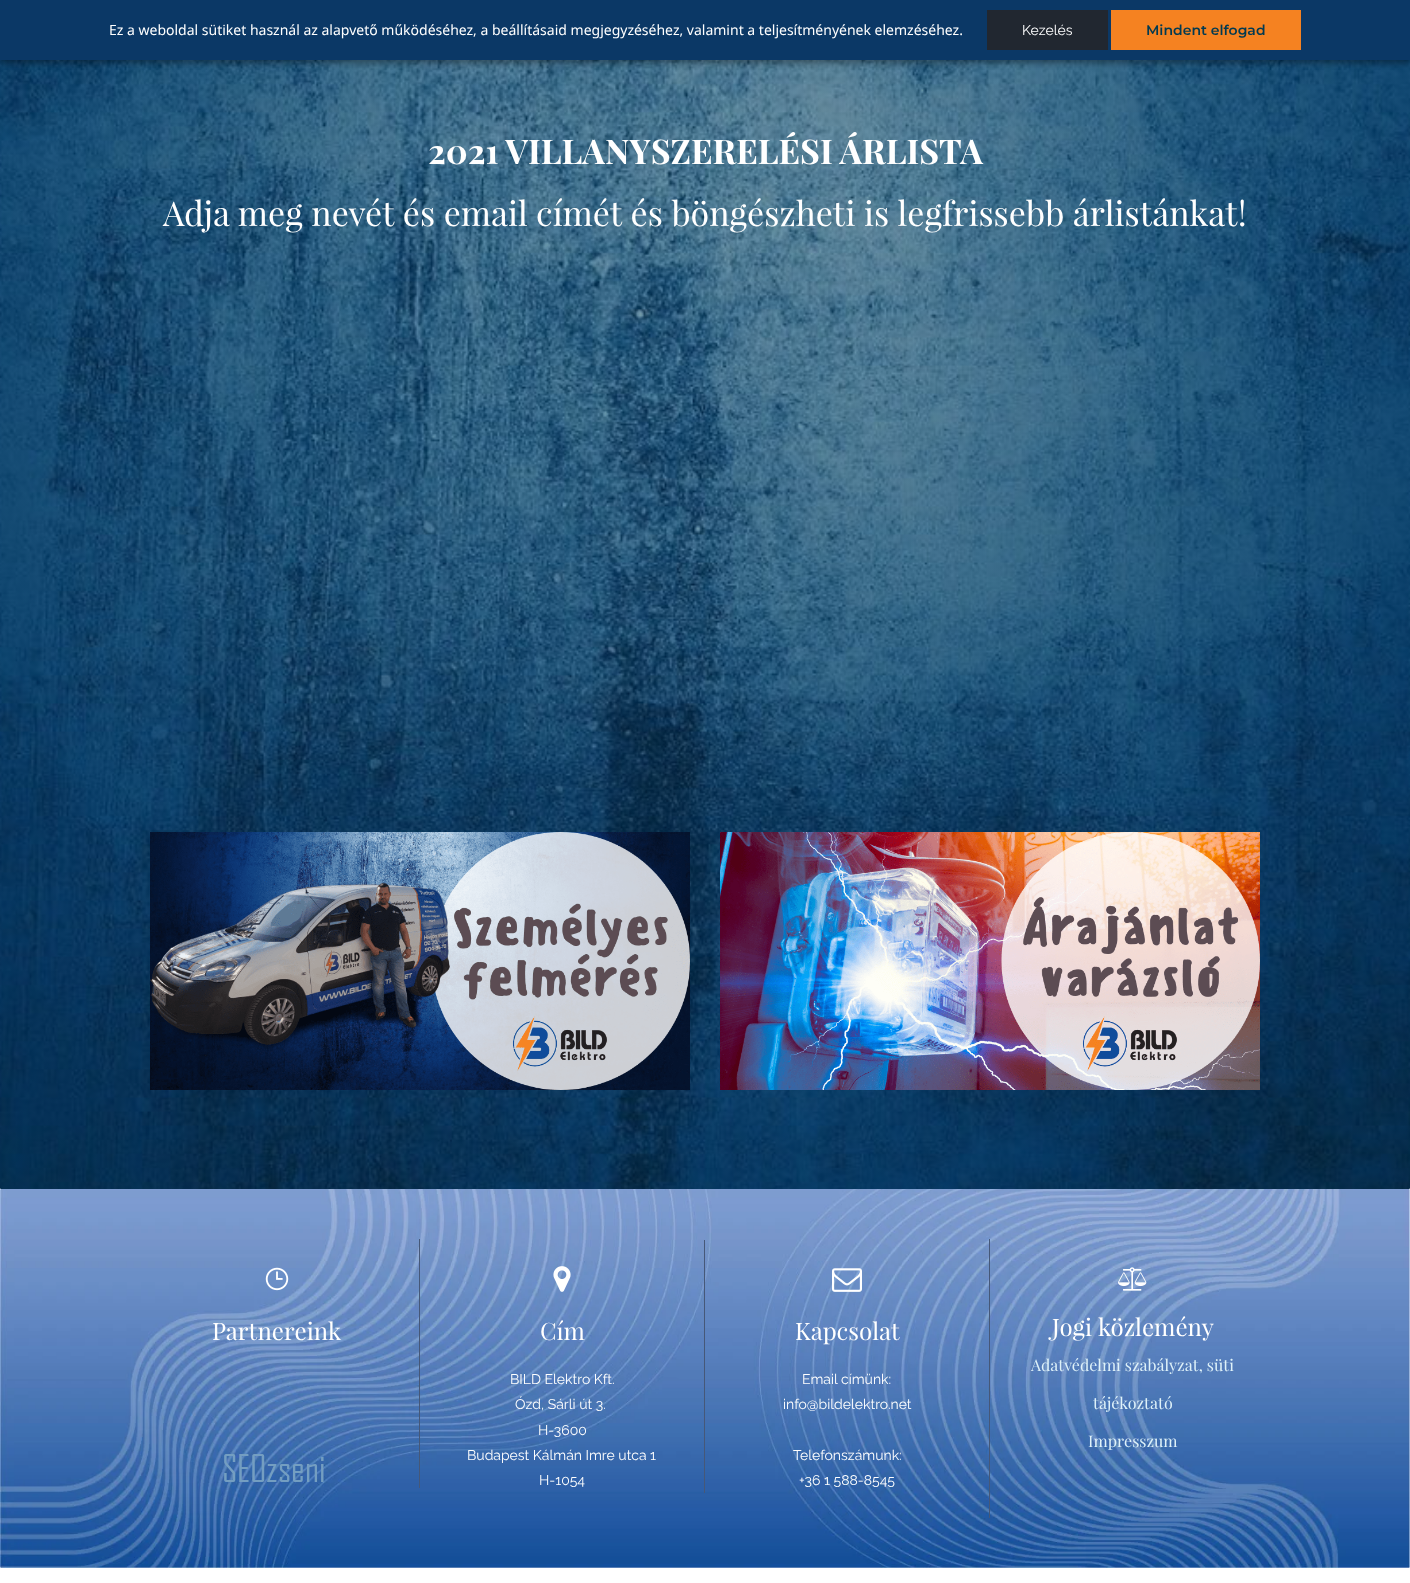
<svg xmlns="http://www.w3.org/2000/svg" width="1410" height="1583">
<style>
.a{font:14px Noto Sans;fill:#fff}
.b{font:14px Raleway;fill:#fff}
.c{font:600 14px Montserrat;fill:#013a51}
.d{font:bold 34px Playfair Display;fill:#fff}
.e{font:34px Playfair Display;fill:#fff}
.f{font:24px Playfair Display;fill:#fff}
.g{font:16px Playfair Display;fill:#dff2f9}
</style>
<rect width="100%" height="100%" fill="#fff"/>
<image href="1.png" x="0" y="60" width="1410" height="1129"/>
<path fill="#0000003b" filter="blur(3px)" d="M0 3h1410v60H0z"/>
<path fill="#00000029" filter="blur(3px)" d="M0 3h1410v60H0z"/>
<path fill="#0b3866" d="M0 0h1410v60H0z"/>
<path fill="#212730" d="M987 10h121v40H987z"/>
<path fill="#f58221" d="M1111 10h190v40H1111z"/>
<image href="2.png" x="150" y="832" width="540" height="258"/>
<image href="3.png" x="720" y="832" width="540" height="258"/>
<image href="4.png" x="0" y="1189" width="1410" height="379"/>
<path fill="#465878" d="M419 1239h1v249H419z"/>
<image href="5.png" x="265" y="1267" width="24" height="24"/>
<image href="6.png" x="224" y="1454" width="100" height="28"/>
<path fill="#465878" d="M704 1240h1v253H704z"/>
<image href="7.png" x="553" y="1266" width="18" height="26"/>
<path fill="#465878" d="M989 1239h1v279H989z"/>
<image href="8.png" x="832" y="1268" width="30" height="24"/>
<image href="9.png" x="1118" y="1267" width="29" height="24"/>
<text class="a" x="109" y="35">Ez a weboldal sütiket használ az alapvető működéséhez, a beállításaid megjegyzéséhez, valamint a teljesítményének elemzéséhez.</text>
<text class="b" x="1022" y="35">Kezelés</text>
<text class="c" x="1146" y="35">Mindent elfogad</text>
<text class="d" x="428" y="164">2021 VILLANYSZERELÉSI ÁRLISTA</text>
<text class="e" x="163" y="226">Adja meg nevét és email címét és böngészheti is legfrissebb árlistánkat!</text>
<text class="f" x="212" y="1340">Partnereink</text>
<text class="f" x="540" y="1340">Cím</text>
<text class="b" x="510" y="1384">BILD Elektro Kft.</text>
<text class="b" x="515" y="1409">Ózd, Sárli út 3.</text>
<text class="b" x="538" y="1435">H-3600</text>
<text class="b" x="467" y="1460">Budapest Kálmán Imre utca 1</text>
<text class="b" x="539" y="1485">H-1054</text>
<text class="f" x="795" y="1340">Kapcsolat</text>
<text class="b" x="802" y="1384">Email címünk:</text>
<text class="b" x="783" y="1409">info@bildelektro.net</text>
<text class="b" x="793" y="1460">Telefonszámunk:</text>
<text class="b" x="799" y="1485">+36 1 588-8545</text>
<text class="f" x="1052" y="1336">Jogi közlemény</text>
<text class="g" x="1031" y="1371">Adatvédelmi szabályzat, süti</text>
<text class="g" x="1093" y="1409">tájékoztató</text>
<text class="g" x="1088" y="1447">Impresszum</text>
</svg>
